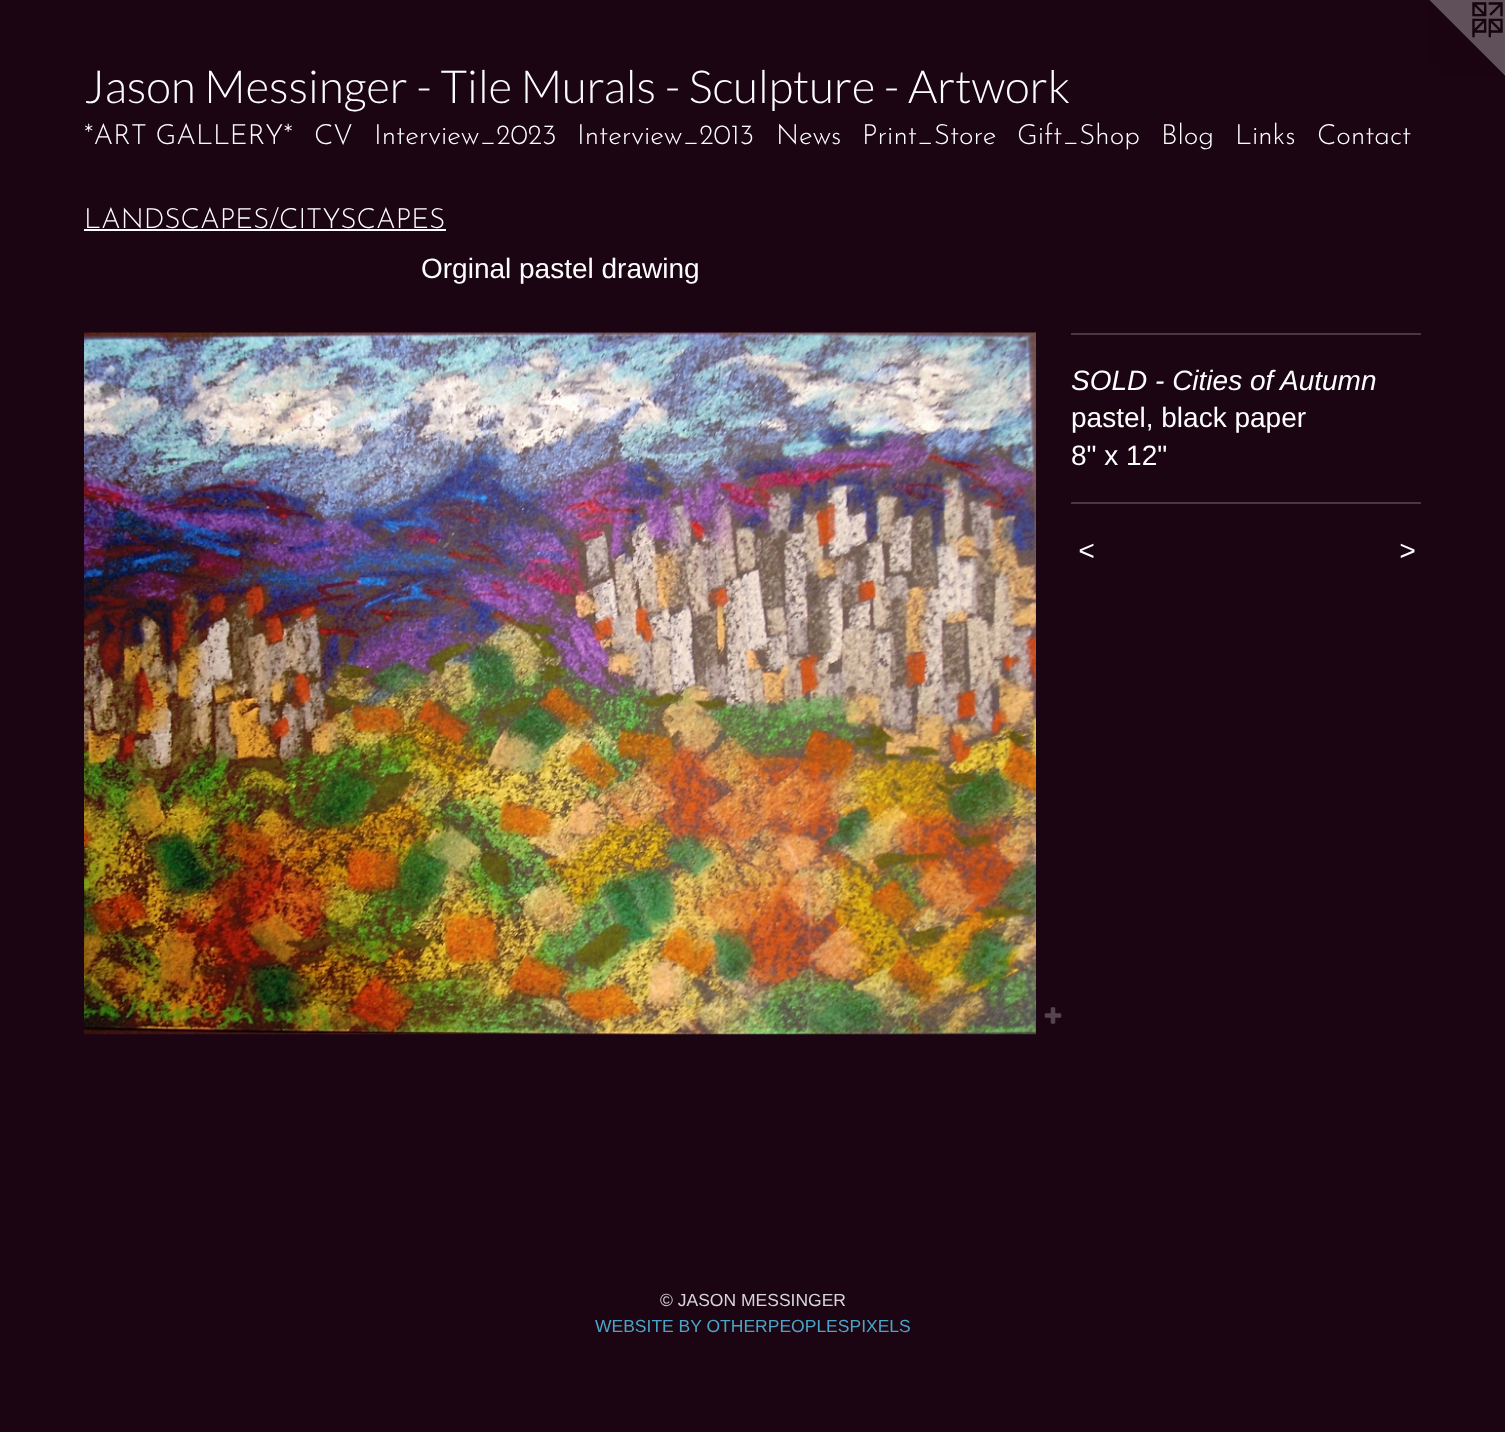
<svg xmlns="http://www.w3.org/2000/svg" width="1505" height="1432">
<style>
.a{font:300 45.5px Lato;fill:#fff}
.b{font:100 28px Josefin Sans;fill:#fff}
.c{font:28px Liberation Sans;fill:#fff}
.d{font:italic 28px Liberation Sans;fill:#fff}
.e{font:italic 28px Liberation Sans;letter-spacing:2px;fill:#fff}
.f{font:17.5px Liberation Sans;fill:#d6d6d6}
.g{font:17.5px Liberation Sans;fill:#4ca4c8}
</style>
<rect width="100%" height="100%" fill="#1c0513"/>
<image href="1.png" x="1429" y="0" width="76" height="76"/>
<path fill="#fff" d="M84 229h362v2H84z"/>
<image href="2.png" x="84" y="332" width="952" height="703"/>
<image href="3.png" x="1044" y="1007" width="18" height="17"/>
<path fill="#493742" d="M1071 333h350v2H1071z"/>
<path fill="#493742" d="M1071 502h350v2H1071z"/>
<text class="a" x="84" y="103">Jason Messinger - Tile Murals - Sculpture - Artwork</text>
<text class="b" x="84" y="144">*ART GALLERY*</text>
<text class="b" x="314" y="144">CV</text>
<text class="b" x="374" y="144">Interview_2023</text>
<text class="b" x="577" y="144">Interview_2013</text>
<text class="b" x="776" y="144">News</text>
<text class="b" x="862" y="144">Print_Store</text>
<text class="b" x="1017" y="144">Gift_Shop</text>
<text class="b" x="1161" y="144">Blog</text>
<text class="b" x="1235" y="144">Links</text>
<text class="b" x="1317" y="144">Contact</text>
<text class="b" x="84" y="228">LANDSCAPES/CITYSCAPES</text>
<text class="c" x="421" y="278">Orginal pastel drawing</text>
<text class="d" x="1071" y="390">SOLD - Cities of Autumn</text>
<text class="c" x="1071" y="427">pastel, black paper</text>
<text class="c" x="1071" y="465">8" x 12"</text>
<text class="e" x="1078" y="560">&lt;</text>
<text class="e" x="1399" y="560">&gt;</text>
<text class="f" x="660" y="1306">© JASON MESSINGER</text>
<text class="g" x="595" y="1332">WEBSITE BY OTHERPEOPLESPIXELS</text>
</svg>
